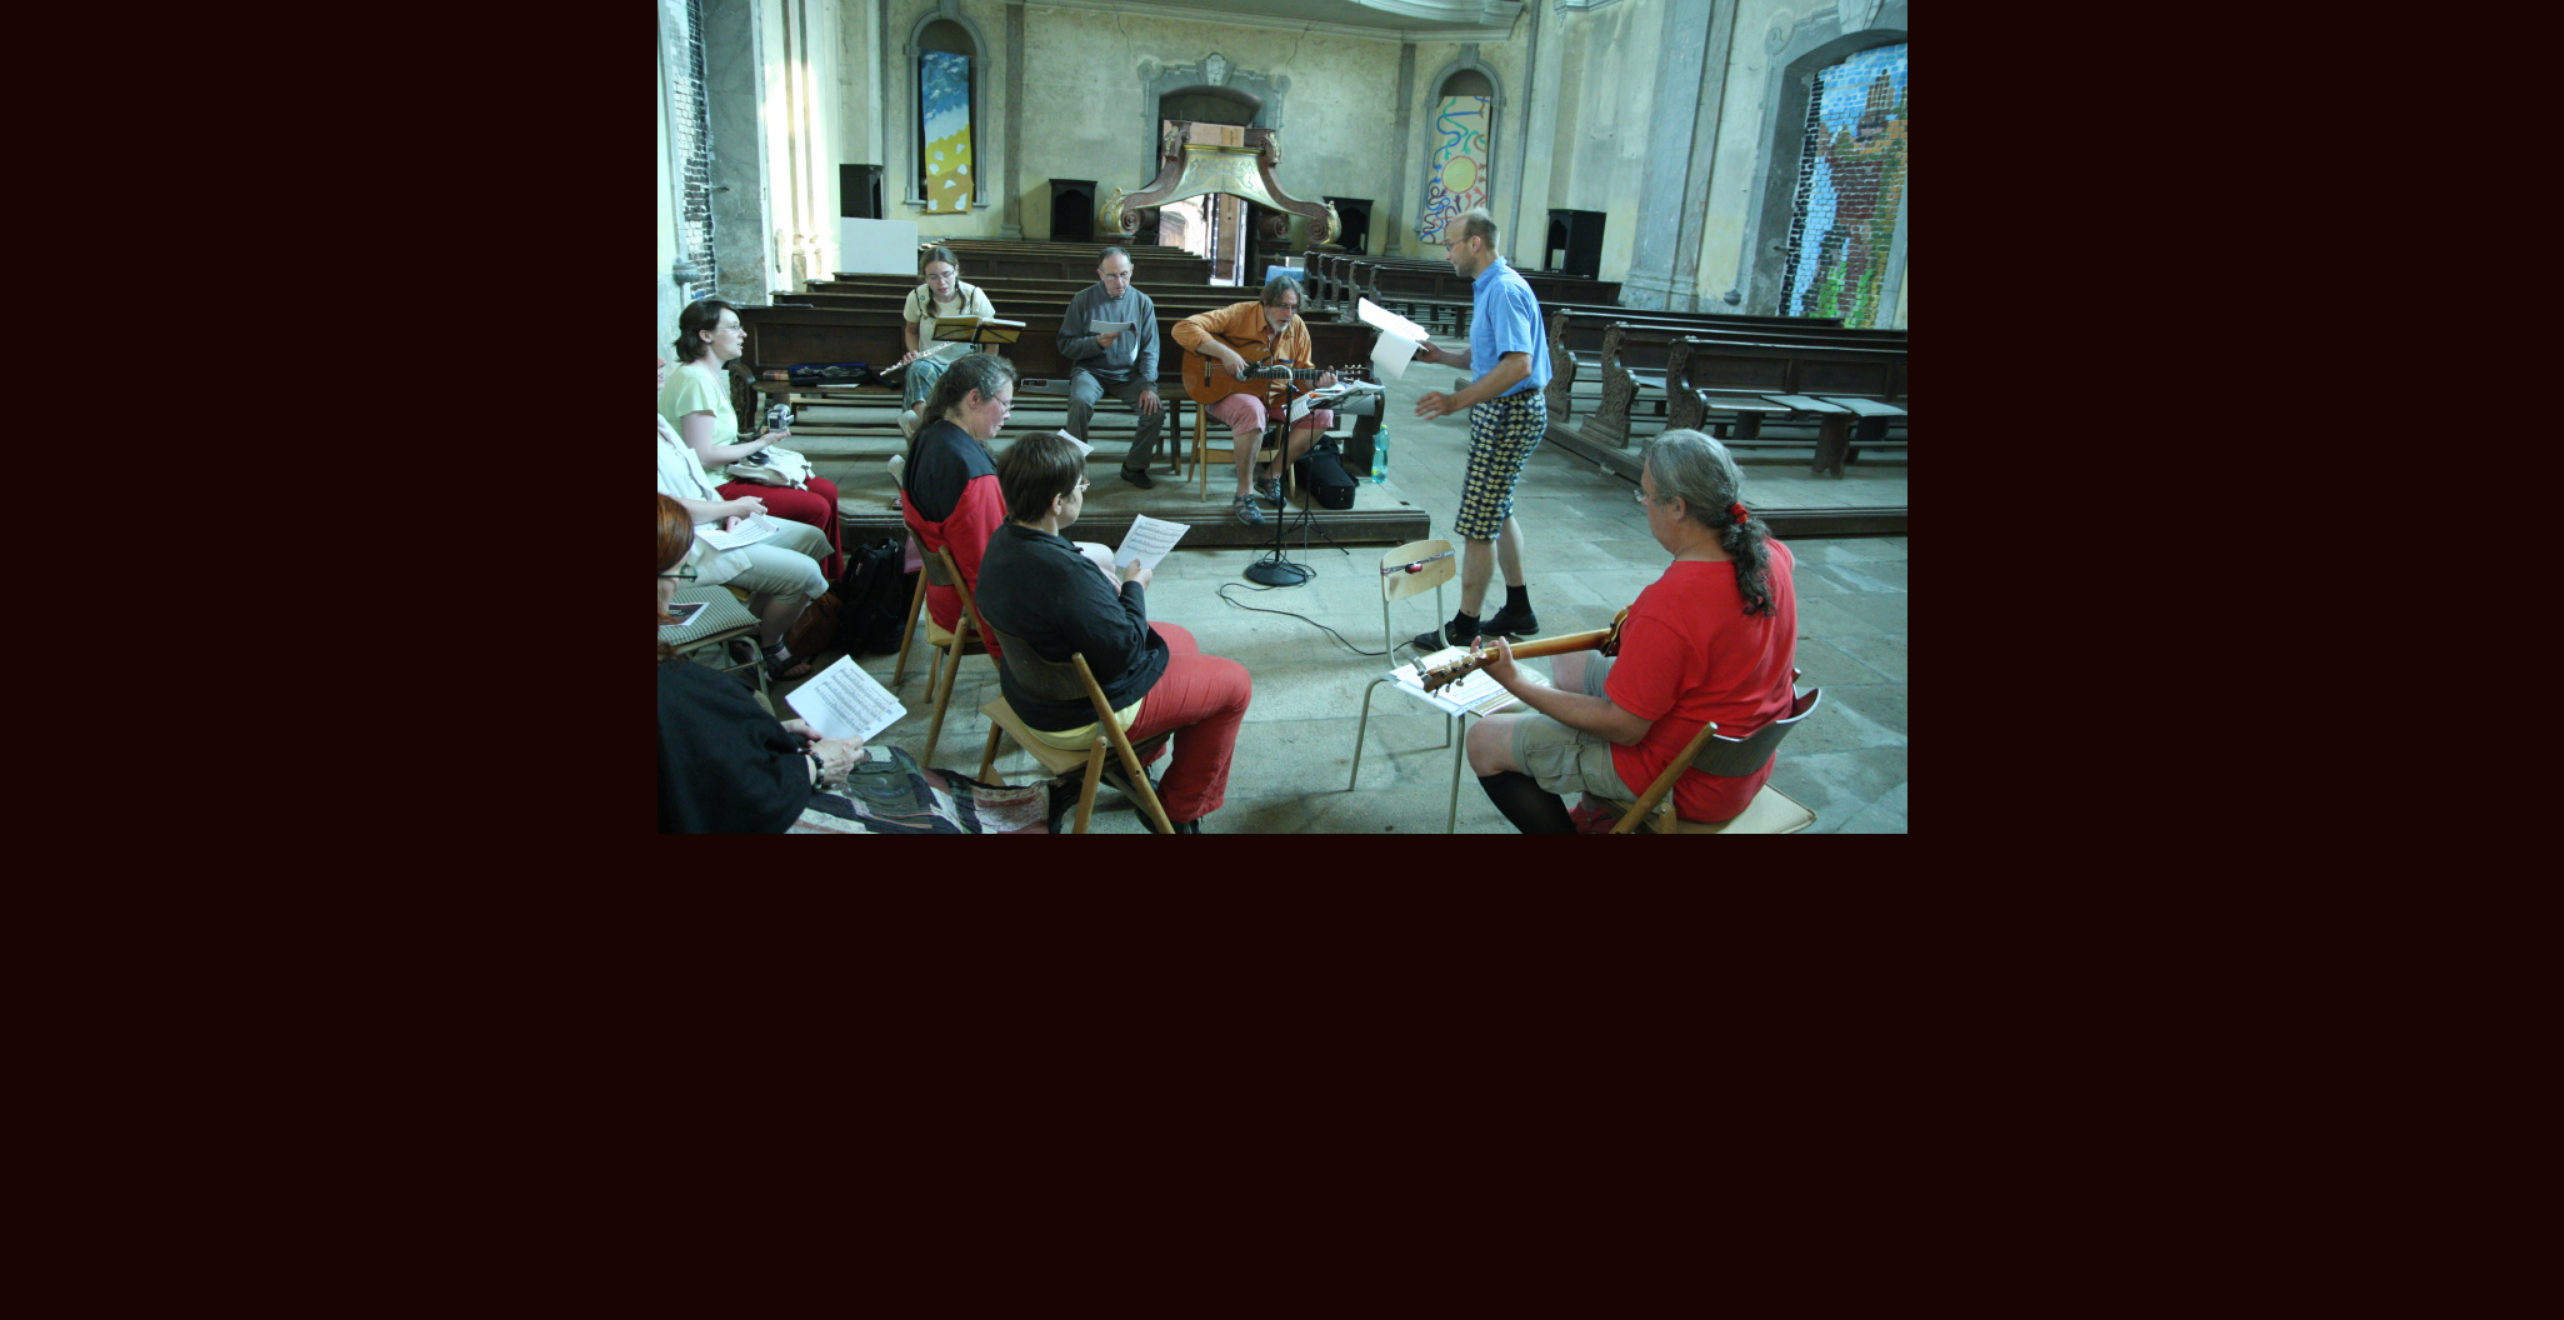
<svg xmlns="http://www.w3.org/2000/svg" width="2564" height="1320">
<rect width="100%" height="100%" fill="#180400"/>
<image href="1.png" x="657" y="0" width="1251" height="834"/>
</svg>
